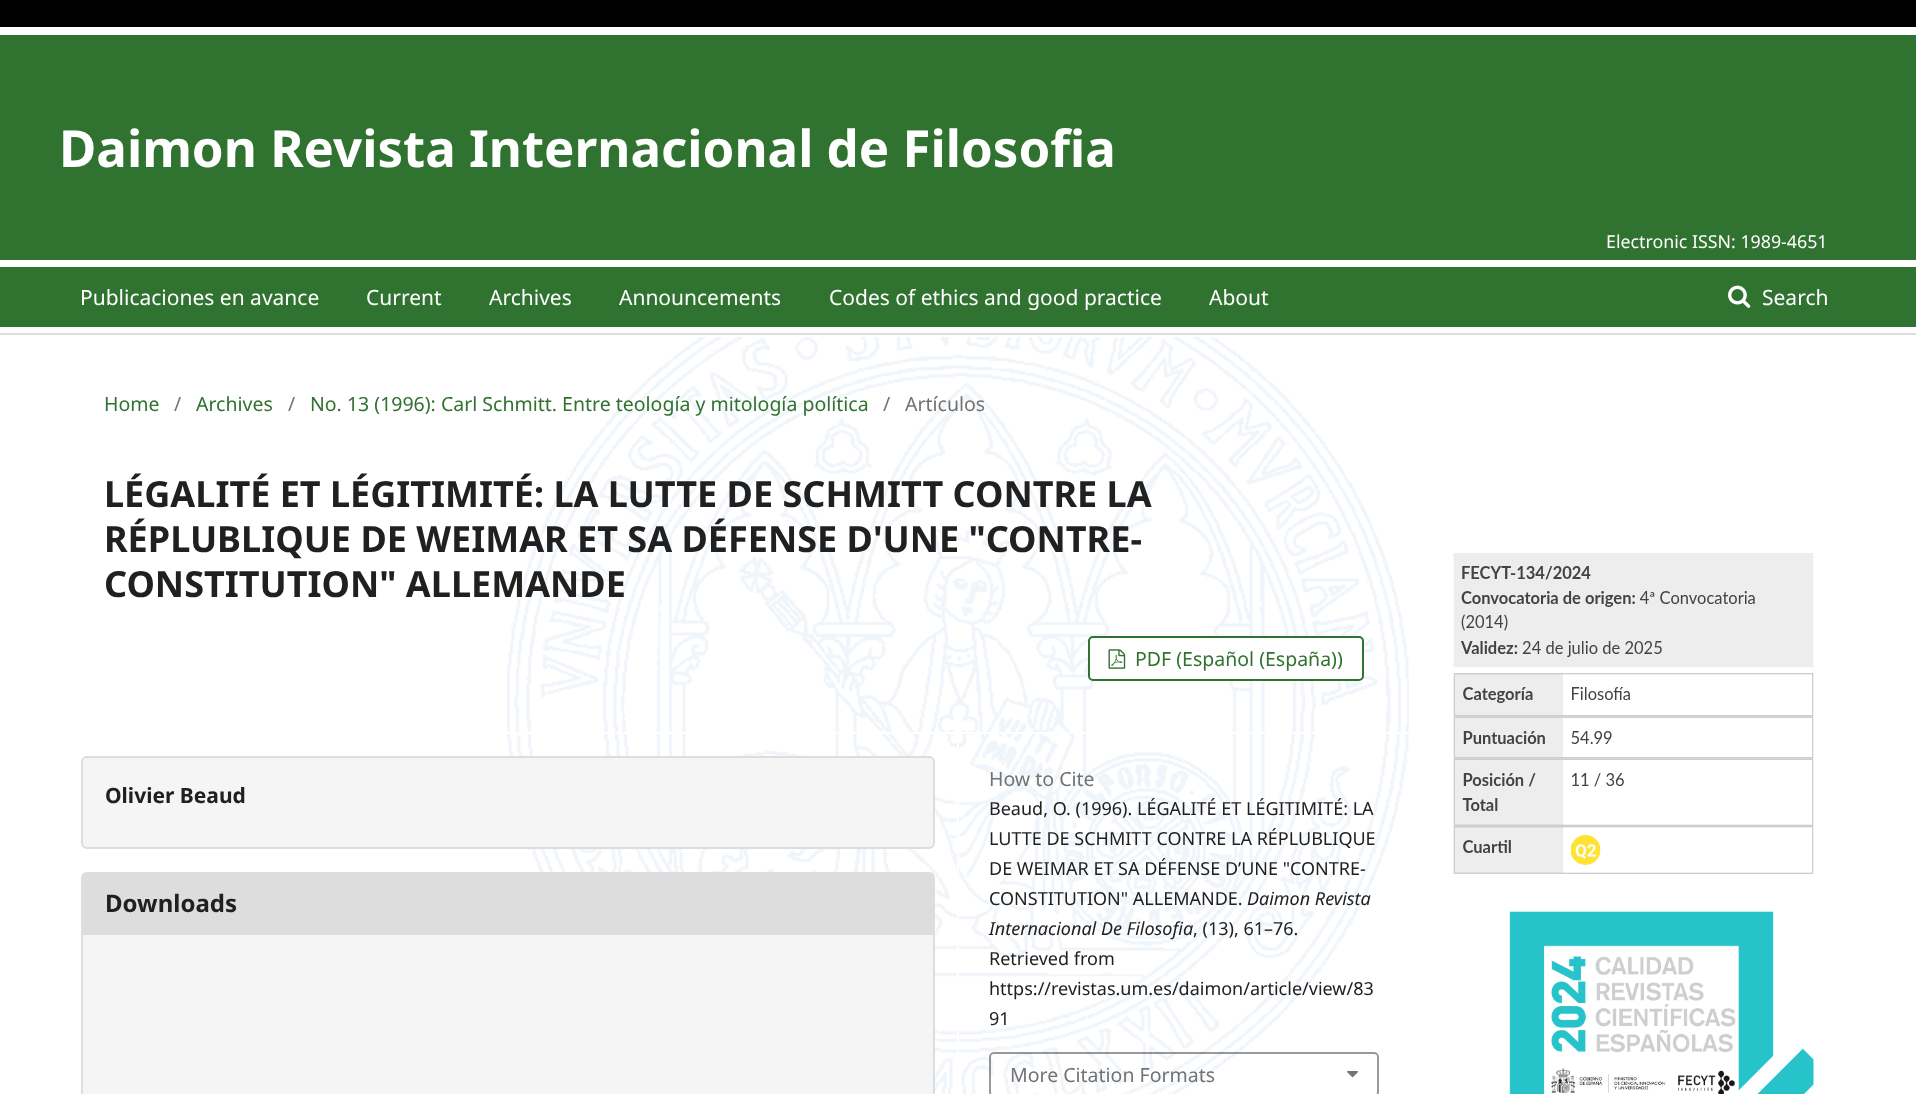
<svg xmlns="http://www.w3.org/2000/svg" width="1916" height="1094">
<style>
.a{font:bold 51px Noto Sans;fill:#fff}
.b{font:17.8px Noto Sans;fill:#fff}
.c{font:21px Noto Sans;fill:#fff}
.d{font:19.5px Noto Sans;fill:#30722f}
.e{font:19.5px Noto Sans;fill:#727374}
.f{font:bold 36px Noto Sans;fill:#202020}
.g{font:bold 21px Noto Sans;fill:#202020}
.h{font:bold 24px Noto Sans;fill:#202020}
.i{font:18px Noto Sans;fill:#202020}
.j{font:italic 18px Noto Sans;fill:#202020}
</style>
<rect width="100%" height="100%" fill="#fff"/>
<image href="1.png" x="507" y="337" width="902" height="757"/>
<path fill="#30722f" d="M0 35h1916v292H0z"/>
<path fill="#000" d="M0 0h1916v27H0z"/>
<path fill="#fff" d="M0 260h1916v7H0z"/>
<image href="2.png" x="1728" y="285" width="23" height="23"/>
<path fill="#ddd" d="M0 333h1916v2H0z"/>
<rect fill="#fff" stroke="#30722f" stroke-width="2" x="1089" y="637" width="274" height="43" rx="4"/>
<image href="3.png" x="1108" y="649" width="18" height="20"/>
<path fill="#fff" d="M507 732h902v2H507z"/>
<path fill="#fff" d="M957 743h2v310H957z"/>
<rect fill="#f5f5f5" stroke="#ddd" stroke-width="2" x="82" y="757" width="852" height="91" rx="5"/>
<rect fill="#f5f5f5" stroke="#ddd" stroke-width="2" x="82" y="873" width="852" height="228" rx="5"/>
<path fill="#ddd" d="M83 873h850v62H83z"/>
<rect fill="none" stroke="#00000066" stroke-width="2" x="990" y="1053" width="388" height="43" rx="4"/>
<image href="4.png" x="1347" y="1071" width="12" height="7"/>
<image href="5.png" x="1453" y="553" width="361" height="541"/>
<text class="a" x="59" y="167">Daimon Revista Internacional de Filosofia</text>
<text class="b" x="1606" y="248">Electronic ISSN: 1989-4651</text>
<text class="c" x="80" y="305">Publicaciones en avance</text>
<text class="c" x="366" y="305">Current</text>
<text class="c" x="489" y="305">Archives</text>
<text class="c" x="619" y="305">Announcements</text>
<text class="c" x="829" y="305">Codes of ethics and good practice</text>
<text class="c" x="1209" y="305">About</text>
<text class="c" x="1762" y="305">Search</text>
<text class="d" x="104" y="411">Home</text>
<text class="e" x="174" y="411">/</text>
<text class="d" x="196" y="411">Archives</text>
<text class="e" x="288" y="411">/</text>
<text class="d" x="310" y="411">No. 13 (1996): Carl Schmitt. Entre teología y mitología política</text>
<text class="e" x="883" y="411">/</text>
<text class="e" x="905" y="411">Artículos</text>
<text class="f" x="104" y="507">LÉGALITÉ ET LÉGITIMITÉ: LA LUTTE DE SCHMITT CONTRE LA</text>
<text class="f" x="104" y="552">RÉPLUBLIQUE DE WEIMAR ET SA DÉFENSE D'UNE "CONTRE-</text>
<text class="f" x="104" y="597">CONSTITUTION" ALLEMANDE</text>
<text class="d" x="1135" y="666">PDF (Español (España))</text>
<text class="g" x="105" y="803">Olivier Beaud</text>
<text class="h" x="105" y="912">Downloads</text>
<text class="e" x="989" y="786">How to Cite</text>
<text class="i" x="989" y="815">Beaud, O. (1996). LÉGALITÉ ET LÉGITIMITÉ: LA</text>
<text class="i" x="989" y="845">LUTTE DE SCHMITT CONTRE LA RÉPLUBLIQUE</text>
<text class="i" x="989" y="875">DE WEIMAR ET SA DÉFENSE D’UNE "CONTRE-</text>
<text class="i" x="989" y="905">CONSTITUTION" ALLEMANDE.</text>
<text class="j" x="1247" y="905">Daimon Revista</text>
<text class="j" x="989" y="935">Internacional De Filosofia</text>
<text class="i" x="1193" y="935">, (13), 61–76.</text>
<text class="i" x="989" y="965">Retrieved from</text>
<text class="i" x="989" y="995">https://revistas.um.es/daimon/article/view/83</text>
<text class="i" x="989" y="1025">91</text>
<text class="e" x="1010" y="1082">More Citation Formats</text>
</svg>
